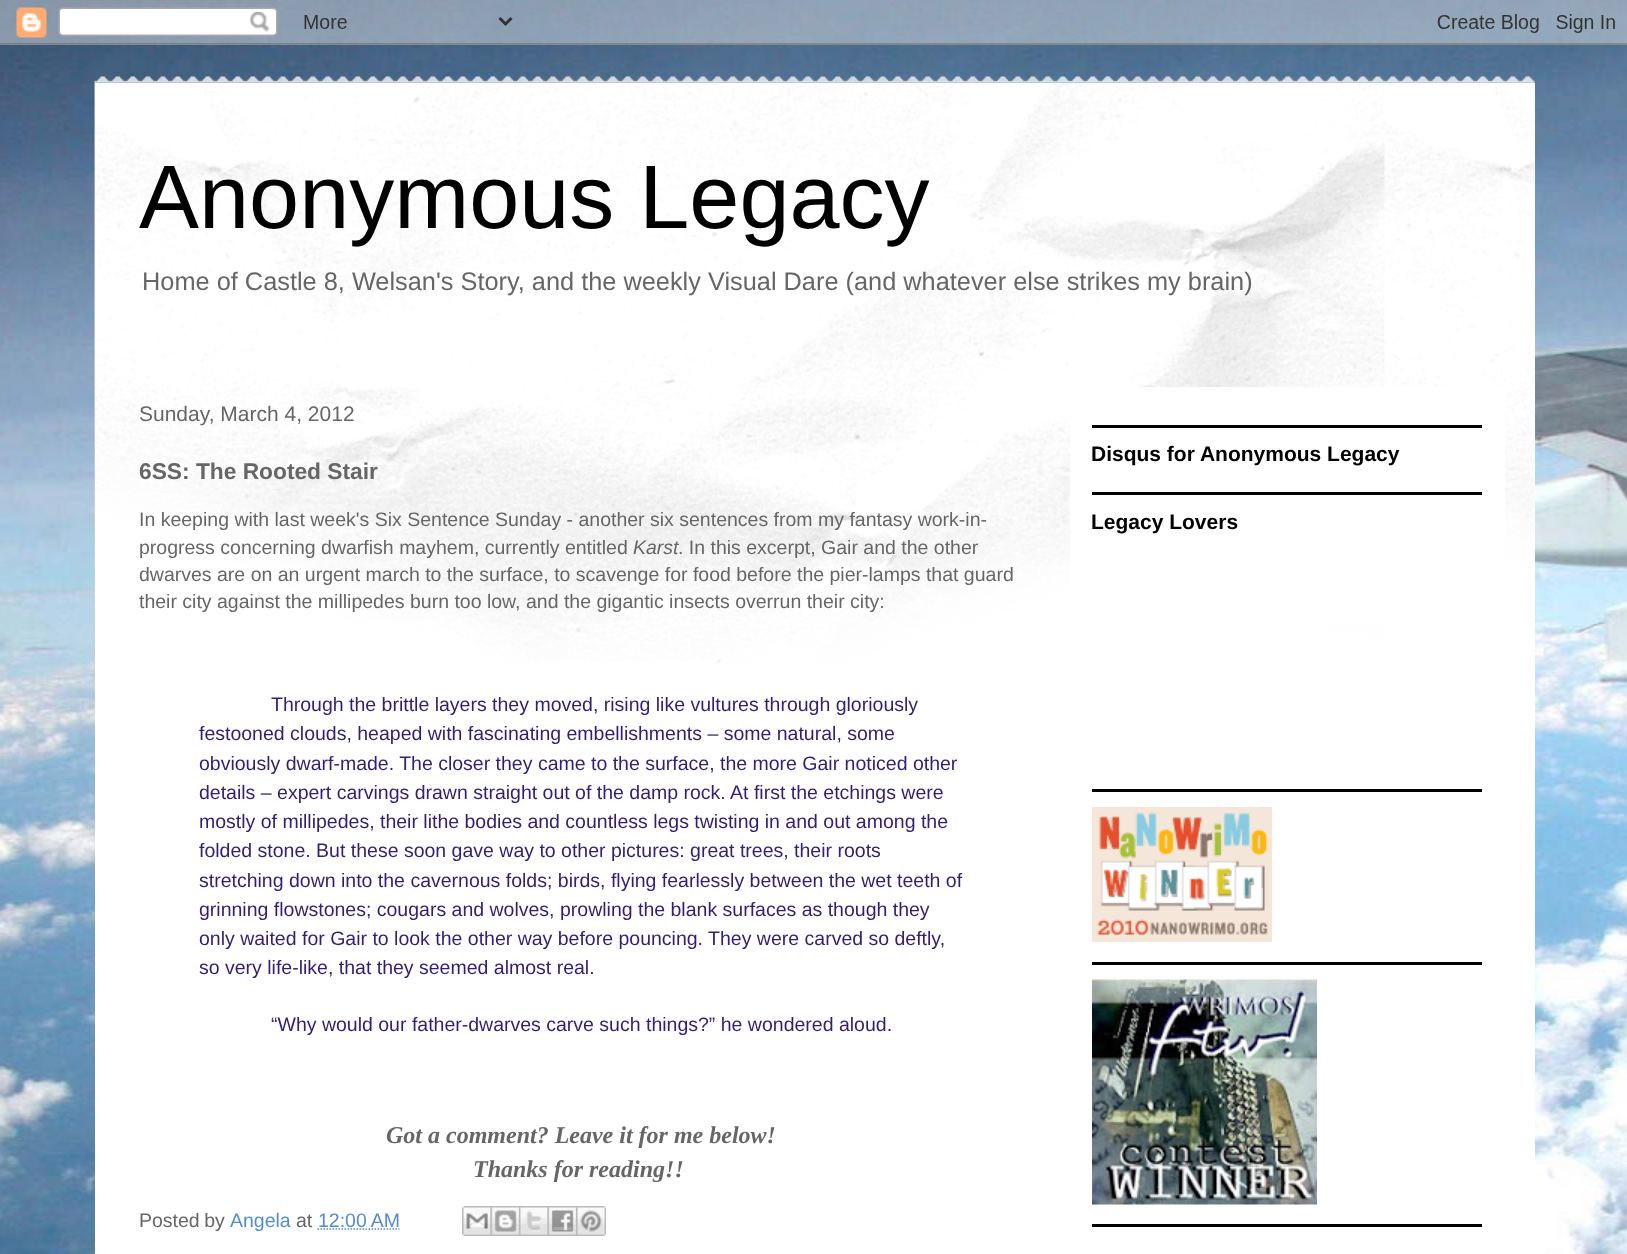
<svg xmlns="http://www.w3.org/2000/svg" width="1627" height="1254">
<style>
.a{font:90px Liberation Sans;fill:#000}
.b{font:25.35px Liberation Sans;fill:#666}
.c{font:21px Liberation Sans;fill:#666}
.d{font:bold 22.75px Liberation Sans;fill:#666}
.e{font:19.5px Liberation Sans;fill:#666}
.f{font:italic 19.5px Liberation Sans;fill:#666}
.g{font:19.5px Liberation Sans;fill:#351c75}
.h{font:italic bold 24px Liberation Serif;fill:#666}
.i{font:19.5px Liberation Sans;fill:#538cd6}
.j{font:bold 21px Liberation Sans;fill:#000}
</style>
<rect width="100%" height="100%" fill="#fff"/>
<image href="1.png" x="0" y="0" width="1627" height="1254"/>
<image href="2.png" x="0" y="0" width="1627" height="45"/>
<image href="3.png" x="94" y="76" width="1441" height="7"/>
<path fill="#fff" d="M95 83h1440v1171H95z"/>
<image href="4.png" x="94" y="82" width="1441" height="581"/>
<path fill="#fff" d="M1070 387h435v237H1070z"/>
<path fill="none" stroke="#538cd6" stroke-width="1.5" stroke-dasharray="1.5 1.5" d="M317.5 1229h82"/>
<image href="5.png" x="462" y="1206" width="29" height="30"/>
<image href="6.png" x="490" y="1206" width="29" height="30"/>
<image href="7.png" x="519" y="1206" width="29" height="30"/>
<image href="8.png" x="547" y="1206" width="29" height="30"/>
<image href="9.png" x="576" y="1206" width="30" height="30"/>
<path fill="#000" d="M1092 425h390v3H1092z"/>
<path fill="#000" d="M1092 492h390v3H1092z"/>
<path fill="#000" d="M1092 789h390v3H1092z"/>
<path fill="#000" d="M1092 962h390v3H1092z"/>
<image href="10.png" x="1092" y="807" width="180" height="135"/>
<path fill="#000" d="M1092 1224h390v3H1092z"/>
<image href="11.png" x="1092" y="979" width="225" height="226"/>
<text class="a" x="139" y="228">Anonymous Legacy</text>
<text class="b" x="142" y="290">Home of Castle 8, Welsan's Story, and the weekly Visual Dare (and whatever else strikes my brain)</text>
<text class="c" x="139" y="421">Sunday, March 4, 2012</text>
<text class="d" x="139" y="479">6SS: The Rooted Stair</text>
<text class="e" x="139" y="526">In keeping with last week's Six Sentence Sunday - another six sentences from my fantasy work-in-</text>
<text class="e" x="139" y="554">progress concerning dwarfish mayhem, currently entitled</text>
<text class="f" x="633" y="554">Karst</text>
<text class="e" x="678" y="554">. In this excerpt, Gair and the other</text>
<text class="e" x="139" y="581">dwarves are on an urgent march to the surface, to scavenge for food before the pier-lamps that guard</text>
<text class="e" x="139" y="608">their city against the millipedes burn too low, and the gigantic insects overrun their city:</text>
<text class="g" x="271" y="711">Through the brittle layers they moved, rising like vultures through gloriously</text>
<text class="g" x="199" y="740">festooned clouds, heaped with fascinating embellishments – some natural, some</text>
<text class="g" x="199" y="770">obviously dwarf-made. The closer they came to the surface, the more Gair noticed other</text>
<text class="g" x="199" y="799">details – expert carvings drawn straight out of the damp rock. At first the etchings were</text>
<text class="g" x="199" y="828">mostly of millipedes, their lithe bodies and countless legs twisting in and out among the</text>
<text class="g" x="199" y="857">folded stone. But these soon gave way to other pictures: great trees, their roots</text>
<text class="g" x="199" y="887">stretching down into the cavernous folds; birds, flying fearlessly between the wet teeth of</text>
<text class="g" x="199" y="916">grinning flowstones; cougars and wolves, prowling the blank surfaces as though they</text>
<text class="g" x="199" y="945">only waited for Gair to look the other way before pouncing. They were carved so deftly,</text>
<text class="g" x="199" y="974">so very life-like, that they seemed almost real.</text>
<text class="g" x="271" y="1031">“Why would our father-dwarves carve such things?” he wondered aloud.</text>
<text class="h" x="386" y="1143">Got a comment? Leave it for me below!</text>
<text class="h" x="473" y="1177">Thanks for reading!!</text>
<text class="e" x="139" y="1227" word-spacing="-1">Posted by</text>
<text class="i" x="230" y="1227">Angela</text>
<text class="e" x="296" y="1227">at</text>
<text class="i" x="318" y="1227">12:00 AM</text>
<text class="j" x="1091" y="461">Disqus for Anonymous Legacy</text>
<text class="j" x="1091" y="529">Legacy Lovers</text>
</svg>
